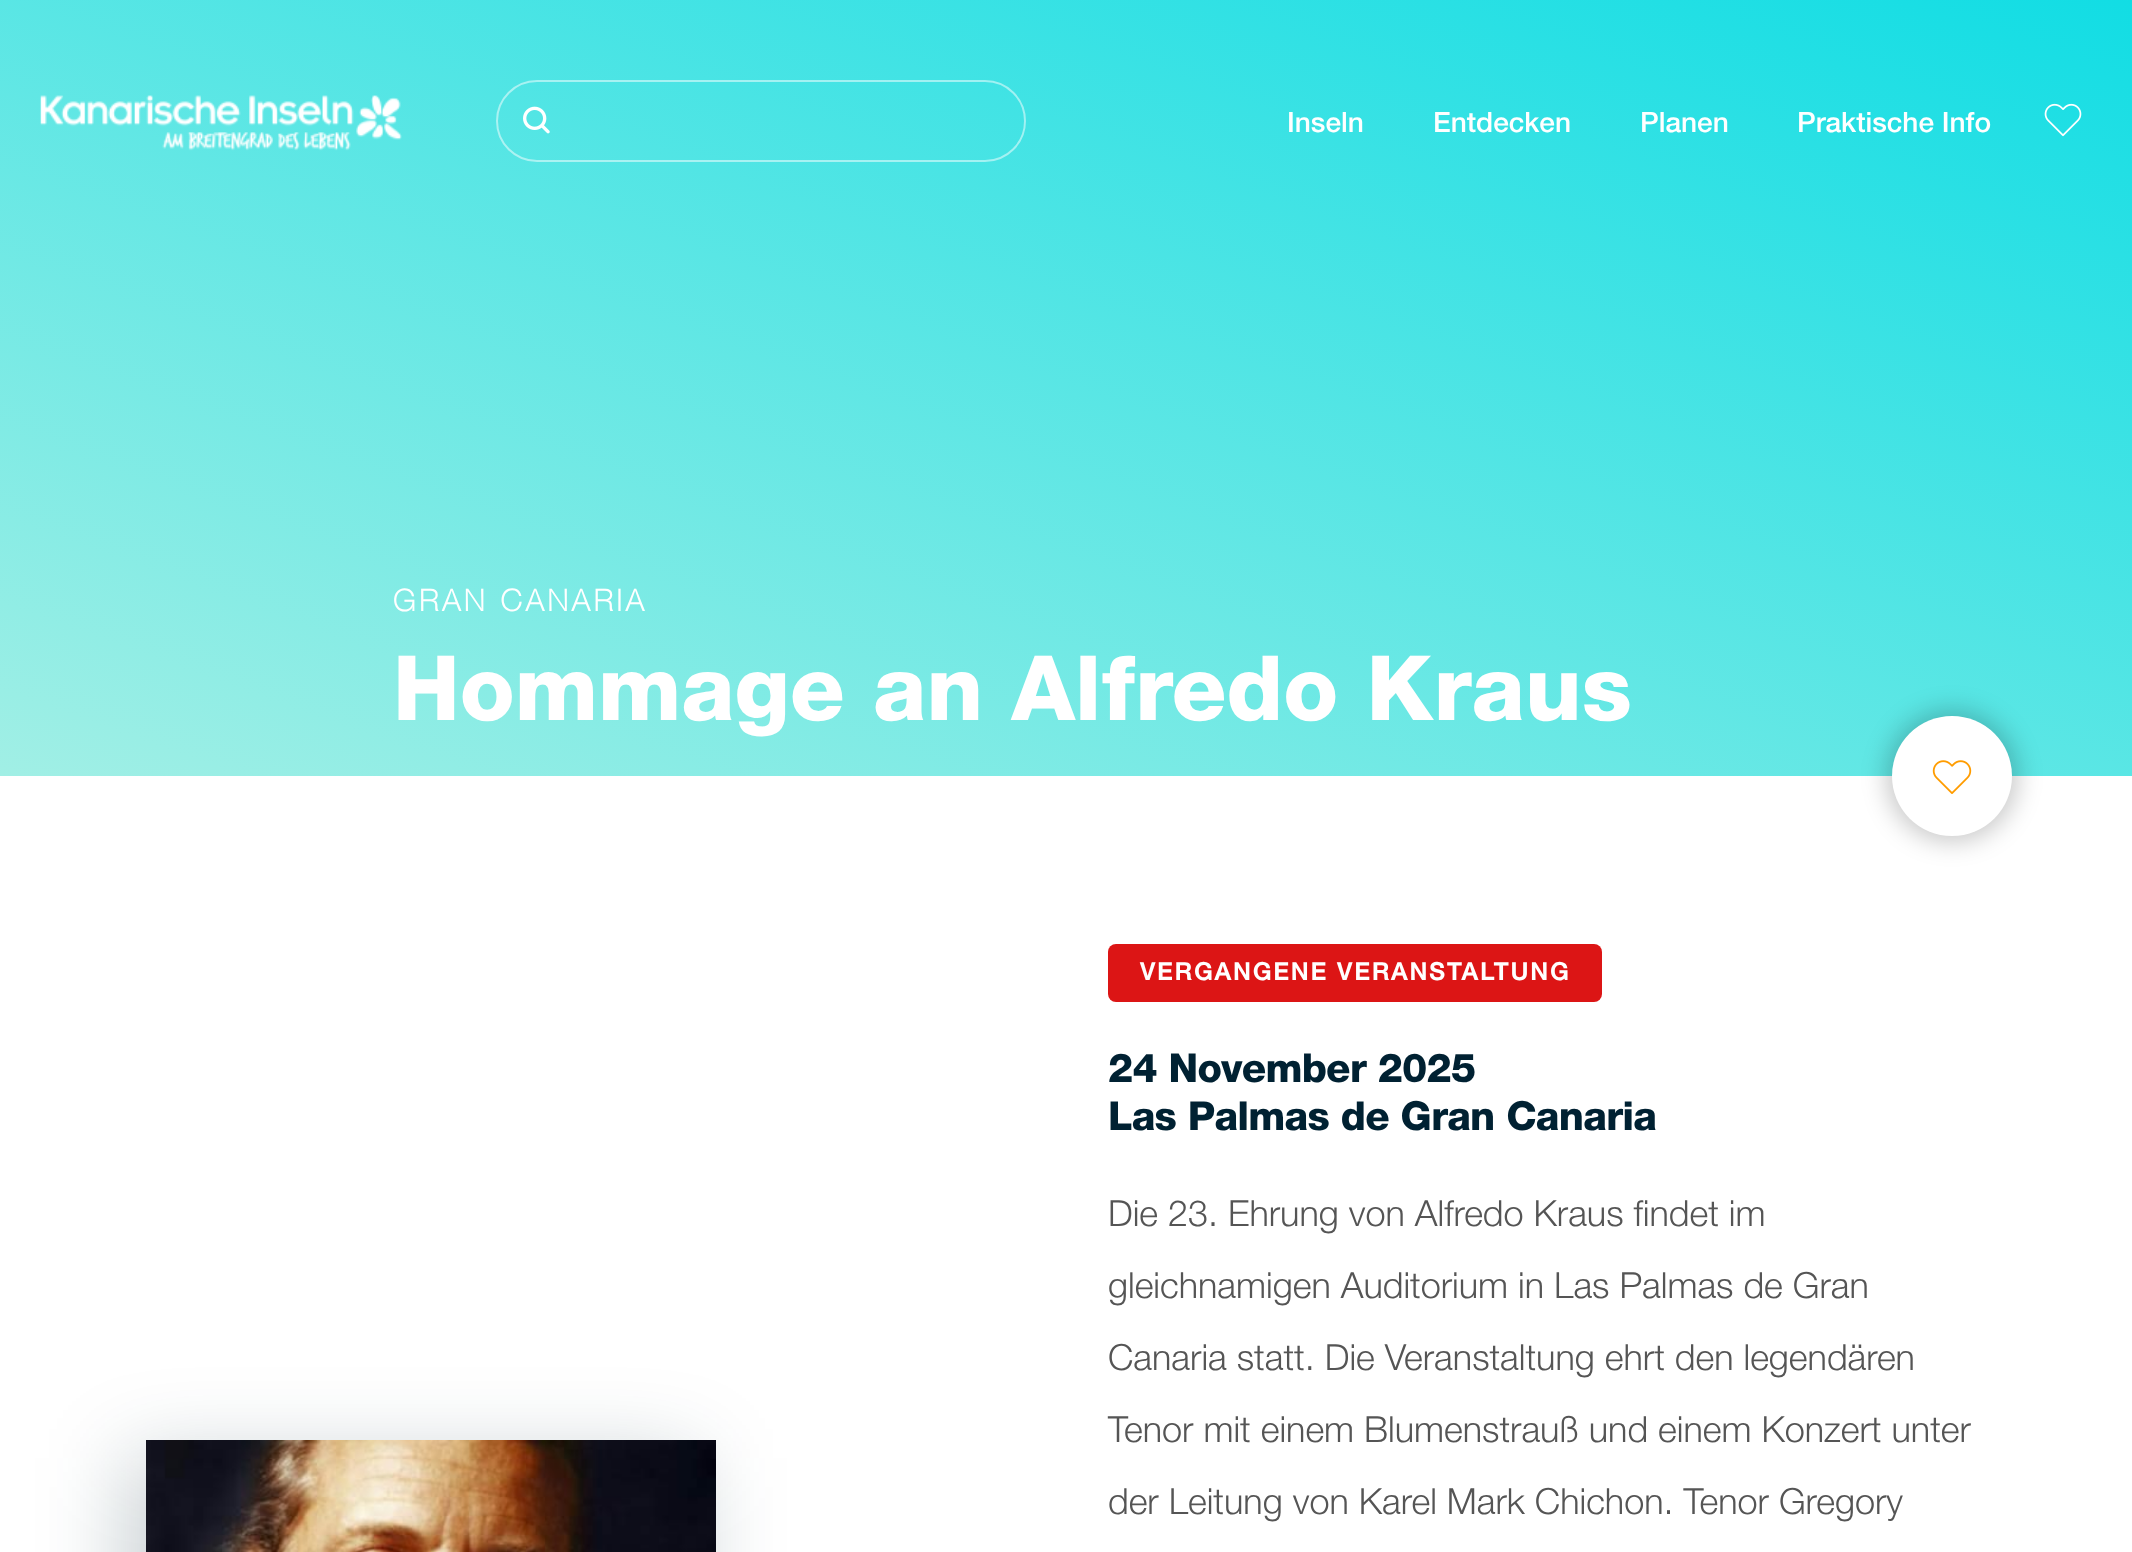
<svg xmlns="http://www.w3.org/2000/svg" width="2132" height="1552">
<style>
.a{font:500 28px Helvetica Neue;fill:#fff}
.b{font:bold 30px 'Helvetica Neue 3';letter-spacing:4px;fill:#fff}
.c{font:bold 90px 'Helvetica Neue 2';fill:#fff}
.d{font:bold 24px Helvetica Neue;letter-spacing:2.4px;fill:#fff}
.e{font:bold 40px 'Helvetica Neue 2';letter-spacing:-0.8px;fill:#002132}
.f{font:300 36px Helvetica Neue;fill:#555}
</style>
<defs>
<linearGradient id="g1" gradientUnits="userSpaceOnUse" x1="817" y1="1073" x2="1315" y2="-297"><stop offset="0" stop-color="#a1efe5"/><stop offset="1" stop-color="#12dde4"/></linearGradient>
</defs>
<rect width="100%" height="100%" fill="#fff"/>
<path fill="url(#g1)" d="M0 0h2132v776H0z"/>
<image href="1.png" x="40" y="95" width="362" height="56"/>
<rect fill="none" stroke="#ffffff80" stroke-width="2" x="497" y="81" width="528" height="80" rx="40"/>
<image href="2.png" x="523" y="106" width="27" height="28"/>
<image href="3.png" x="2044" y="103" width="38" height="34"/>
<rect fill="#00000036" filter="blur(12px)" x="1886" y="710" width="132" height="132" rx="66"/>
<circle fill="#fff" cx="1952" cy="776" r="60"/>
<image href="4.png" x="1932" y="760" width="40" height="34"/>
<path fill="#03243338" filter="blur(43px)" d="M126 1458h570v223H126z"/>
<image href="5.png" x="146" y="1440" width="570" height="112"/>
<rect fill="#dc1515" x="1108" y="944" width="494" height="58" rx="8"/>
<text class="a" x="1287" y="132">Inseln</text>
<text class="a" x="1433" y="132">Entdecken</text>
<text class="a" x="1640" y="132">Planen</text>
<text class="a" x="1797" y="132">Praktische Info</text>
<text class="b" x="393" y="611">GRAN CANARIA</text>
<text class="c" x="393" y="720">Hommage an Alfredo Kraus</text>
<text class="d" x="1140" y="980">VERGANGENE VERANSTALTUNG</text>
<text class="e" x="1108" y="1082">24 November 2025</text>
<text class="e" x="1108" y="1130">Las Palmas de Gran Canaria</text>
<text class="f" x="1108" y="1226">Die 23. Ehrung von Alfredo Kraus findet im</text>
<text class="f" x="1108" y="1298">gleichnamigen Auditorium in Las Palmas de Gran</text>
<text class="f" x="1108" y="1370">Canaria statt. Die Veranstaltung ehrt den legendären</text>
<text class="f" x="1108" y="1442">Tenor mit einem Blumenstrauß und einem Konzert unter</text>
<text class="f" x="1108" y="1514">der Leitung von Karel Mark Chichon. Tenor Gregory</text>
</svg>
